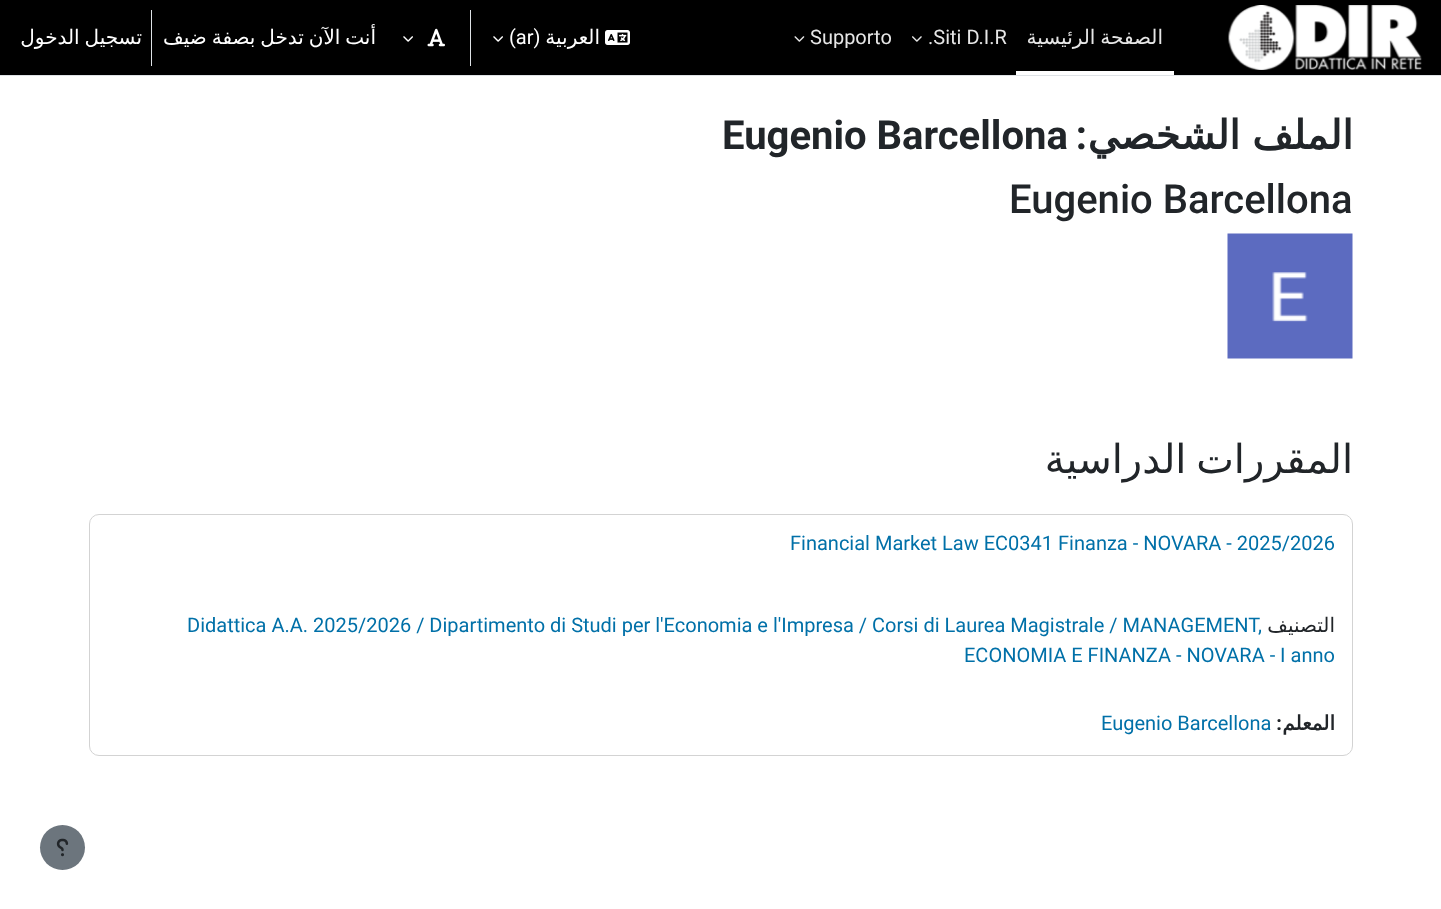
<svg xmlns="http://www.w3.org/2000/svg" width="1441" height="909">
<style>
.a{font:20px DejaVu Sans;direction:rtl;fill:#fff}
.b{font:20px Roboto;fill:#fff}
.c{font:20px Roboto;fill:#e6e6e6}
.d{font:20px DejaVu Sans;direction:rtl;fill:#e6e6e6}
.e{font:bold 40px Roboto;fill:#212529}
.f{font:bold 40px Roboto;direction:rtl;fill:#212529}
.g{font:bold 40px DejaVu Sans;direction:rtl;fill:#212529}
.h{font:500 40px Roboto;fill:#212529}
.i{font:40px DejaVu Sans;direction:rtl;fill:#212529}
.j{font:20px Roboto;fill:#0070a8}
.k{font:20px DejaVu Sans;direction:rtl;fill:#212529}
.l{font:bold 20px Roboto;direction:rtl;fill:#212529}
.m{font:bold 20px DejaVu Sans;direction:rtl;fill:#212529}
</style>
<rect width="100%" height="100%" fill="#fff"/>
<path fill="#000" d="M0 0h1441v75H0z"/>
<path fill="#dee2e6" d="M0 75h1441v1H0z"/>
<path fill="#dee2e6" d="M151 10h1v56H151z"/>
<image href="1.png" x="403" y="36" width="10" height="6"/>
<image href="2.png" x="427" y="28" width="18" height="19"/>
<path fill="#dee2e6" d="M470 10h1v56H470z"/>
<image href="1.png" x="493" y="36" width="10" height="6"/>
<image href="3.png" x="605" y="30" width="25" height="15"/>
<image href="4.png" x="794" y="36" width="11" height="6"/>
<image href="5.png" x="912" y="36" width="10" height="6"/>
<path fill="#fff" d="M1016 71h158v4H1016z"/>
<image href="6.png" x="1228" y="5" width="194" height="65"/>
<image href="7.png" x="1227" y="233" width="126" height="126"/>
<rect fill="none" stroke="#d3d3d3" x="89.5" y="514.5" width="1263" height="241" rx="9.5"/>
<circle fill="#6c757d" cx="62.5" cy="847.5" r="22.5"/>
<image href="8.png" x="56" y="838" width="13" height="19"/>
<text class="a" x="142" y="44" word-spacing="-1.5">تسجيل الدخول</text>
<text class="a" x="376" y="44" word-spacing="-1.5">أنت الآن تدخل بصفة ضيف</text>
<text class="b" x="509" y="44">(ar)</text>
<text class="a" x="600" y="44">العربية</text>
<text class="c" x="810" y="44">Supporto</text>
<text class="c" x="928" y="44">.Siti D.I.R</text>
<text class="d" x="1163" y="44" word-spacing="-1.5">الصفحة الرئيسية</text>
<text class="e" x="722" y="149">Eugenio Barcellona</text>
<text class="f" x="1087" y="149">:</text>
<text class="g" x="1353" y="149" word-spacing="-1">الملف الشخصي</text>
<text class="h" x="1009" y="213">Eugenio Barcellona</text>
<text class="i" x="1353" y="473" word-spacing="-3">المقررات الدراسية</text>
<text class="j" x="790" y="550">Financial Market Law EC0341 Finanza - NOVARA - 2025/2026</text>
<text class="j" x="187" y="632">Didattica A.A. 2025/2026 / Dipartimento di Studi per l'Economia e l'Impresa / Corsi di Laurea Magistrale / MANAGEMENT,</text>
<text class="k" x="1335" y="632">التصنيف</text>
<text class="j" x="964" y="662">ECONOMIA E FINANZA - NOVARA - I anno</text>
<text class="j" x="1101" y="730">Eugenio Barcellona</text>
<text class="l" x="1282" y="730">:</text>
<text class="m" x="1335" y="730">المعلم</text>
</svg>
